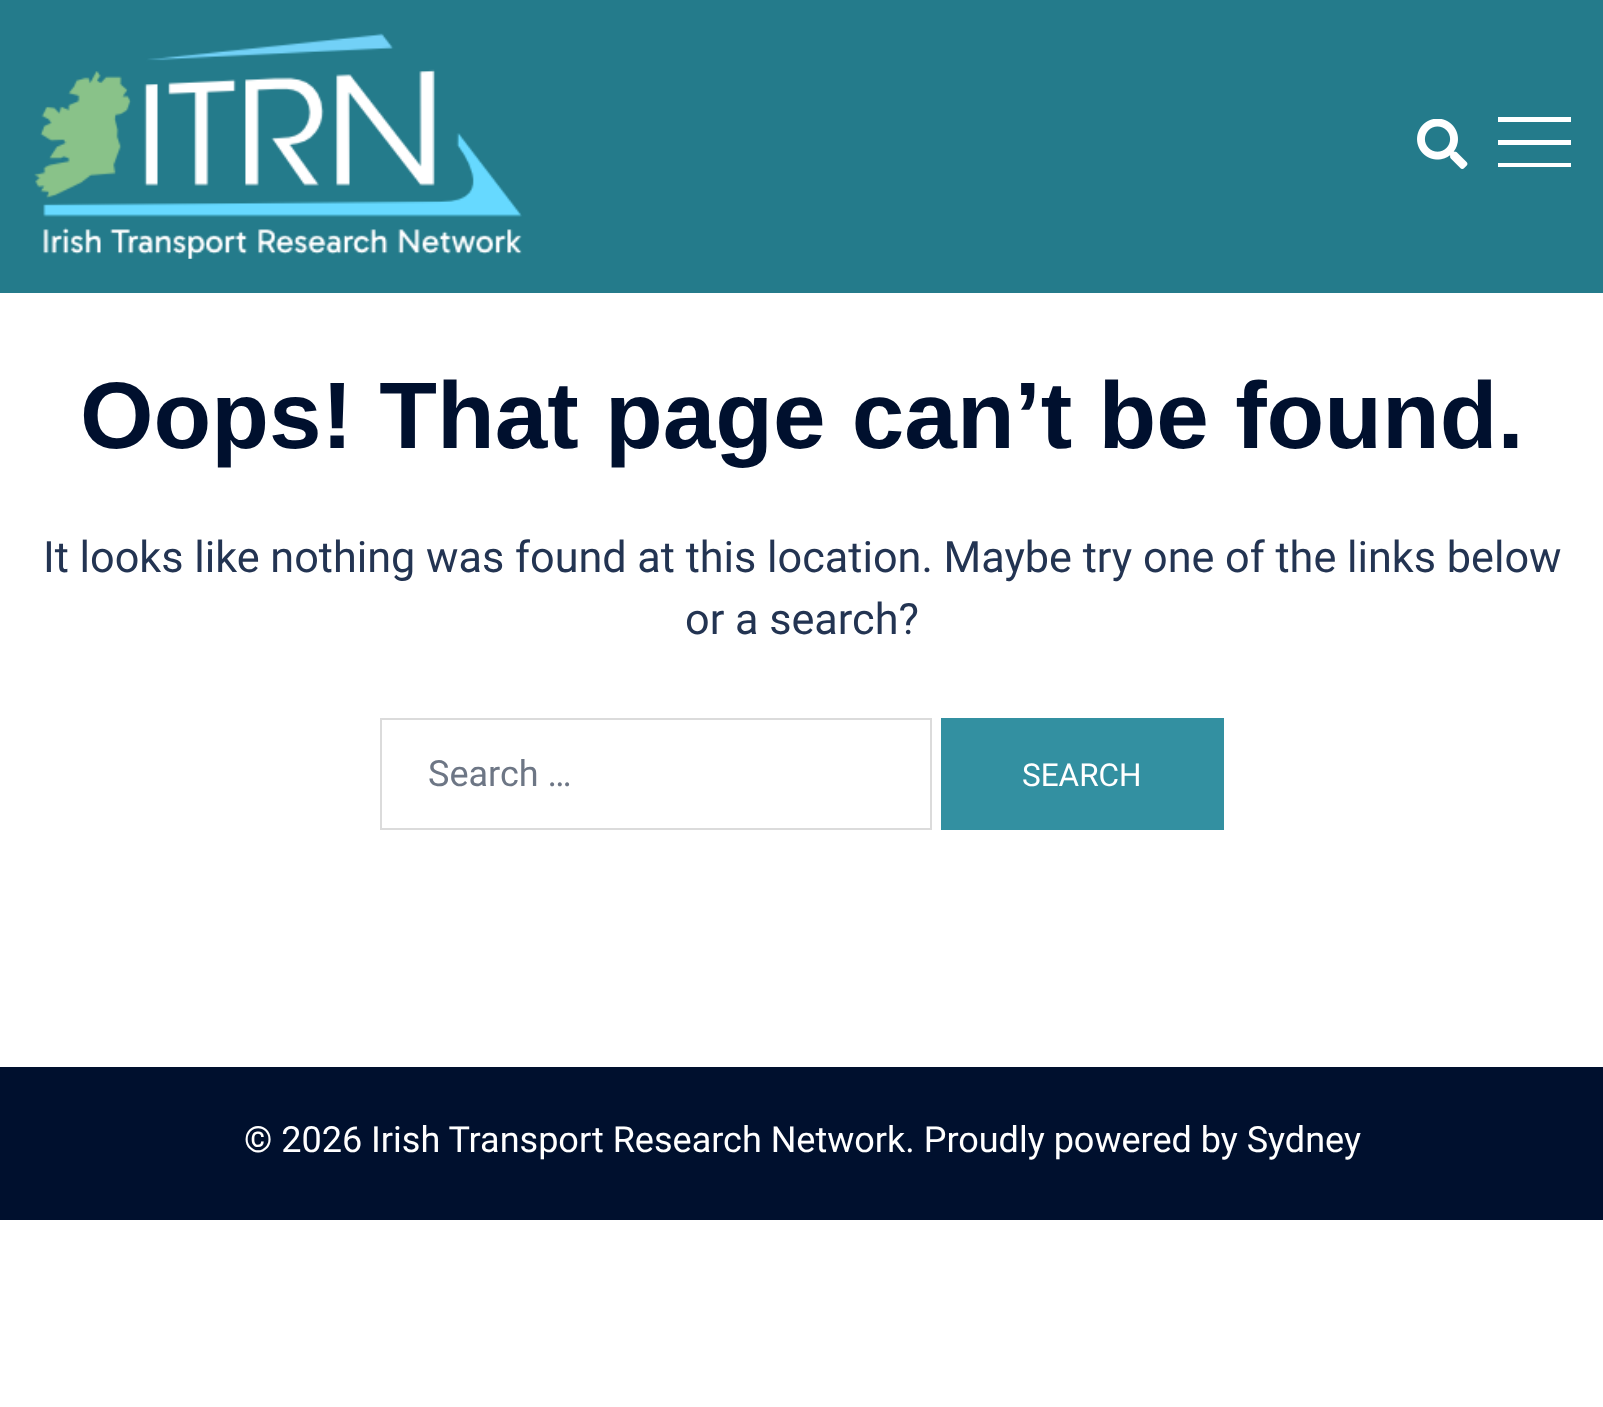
<svg xmlns="http://www.w3.org/2000/svg" width="1603" height="1407">
<style>
.a{font:bold 94.5px Liberation Sans;fill:#00102e}
.b{font:43.2px Roboto;fill:#233452}
.c{font:36px Roboto;fill:#6d7685}
.d{font:31.5px Roboto;fill:#fff}
.e{font:36px Roboto;fill:#fff}
</style>
<rect width="100%" height="100%" fill="#fff"/>
<path fill="#247b8b" d="M0 0h1603v293H0z"/>
<image href="1.png" x="34" y="33" width="488" height="226"/>
<image href="2.png" x="1417" y="119" width="51" height="50"/>
<path fill="#fff" d="M1498 117h73v5H1498z"/>
<path fill="#fff" d="M1498 140h73v5H1498z"/>
<path fill="#fff" d="M1498 163h73v4H1498z"/>
<path fill="none" stroke="#dbdbdb" stroke-width="2" d="M381 719h550v110H381z"/>
<path fill="#3390a1" d="M941 718h283v112H941z"/>
<path fill="#00102e" d="M0 1067h1603v153H0z"/>
<text class="a" x="80" y="448">Oops! That page can’t be found.</text>
<text class="b" x="43" y="572">It looks like nothing was found at this location. Maybe try one of the links below</text>
<text class="b" x="685" y="634">or a search?</text>
<text class="c" x="428" y="786">Search …</text>
<text class="d" x="1022" y="786">SEARCH</text>
<text class="e" x="244" y="1152">© 2026 Irish Transport Research Network. Proudly powered by Sydney</text>
</svg>
